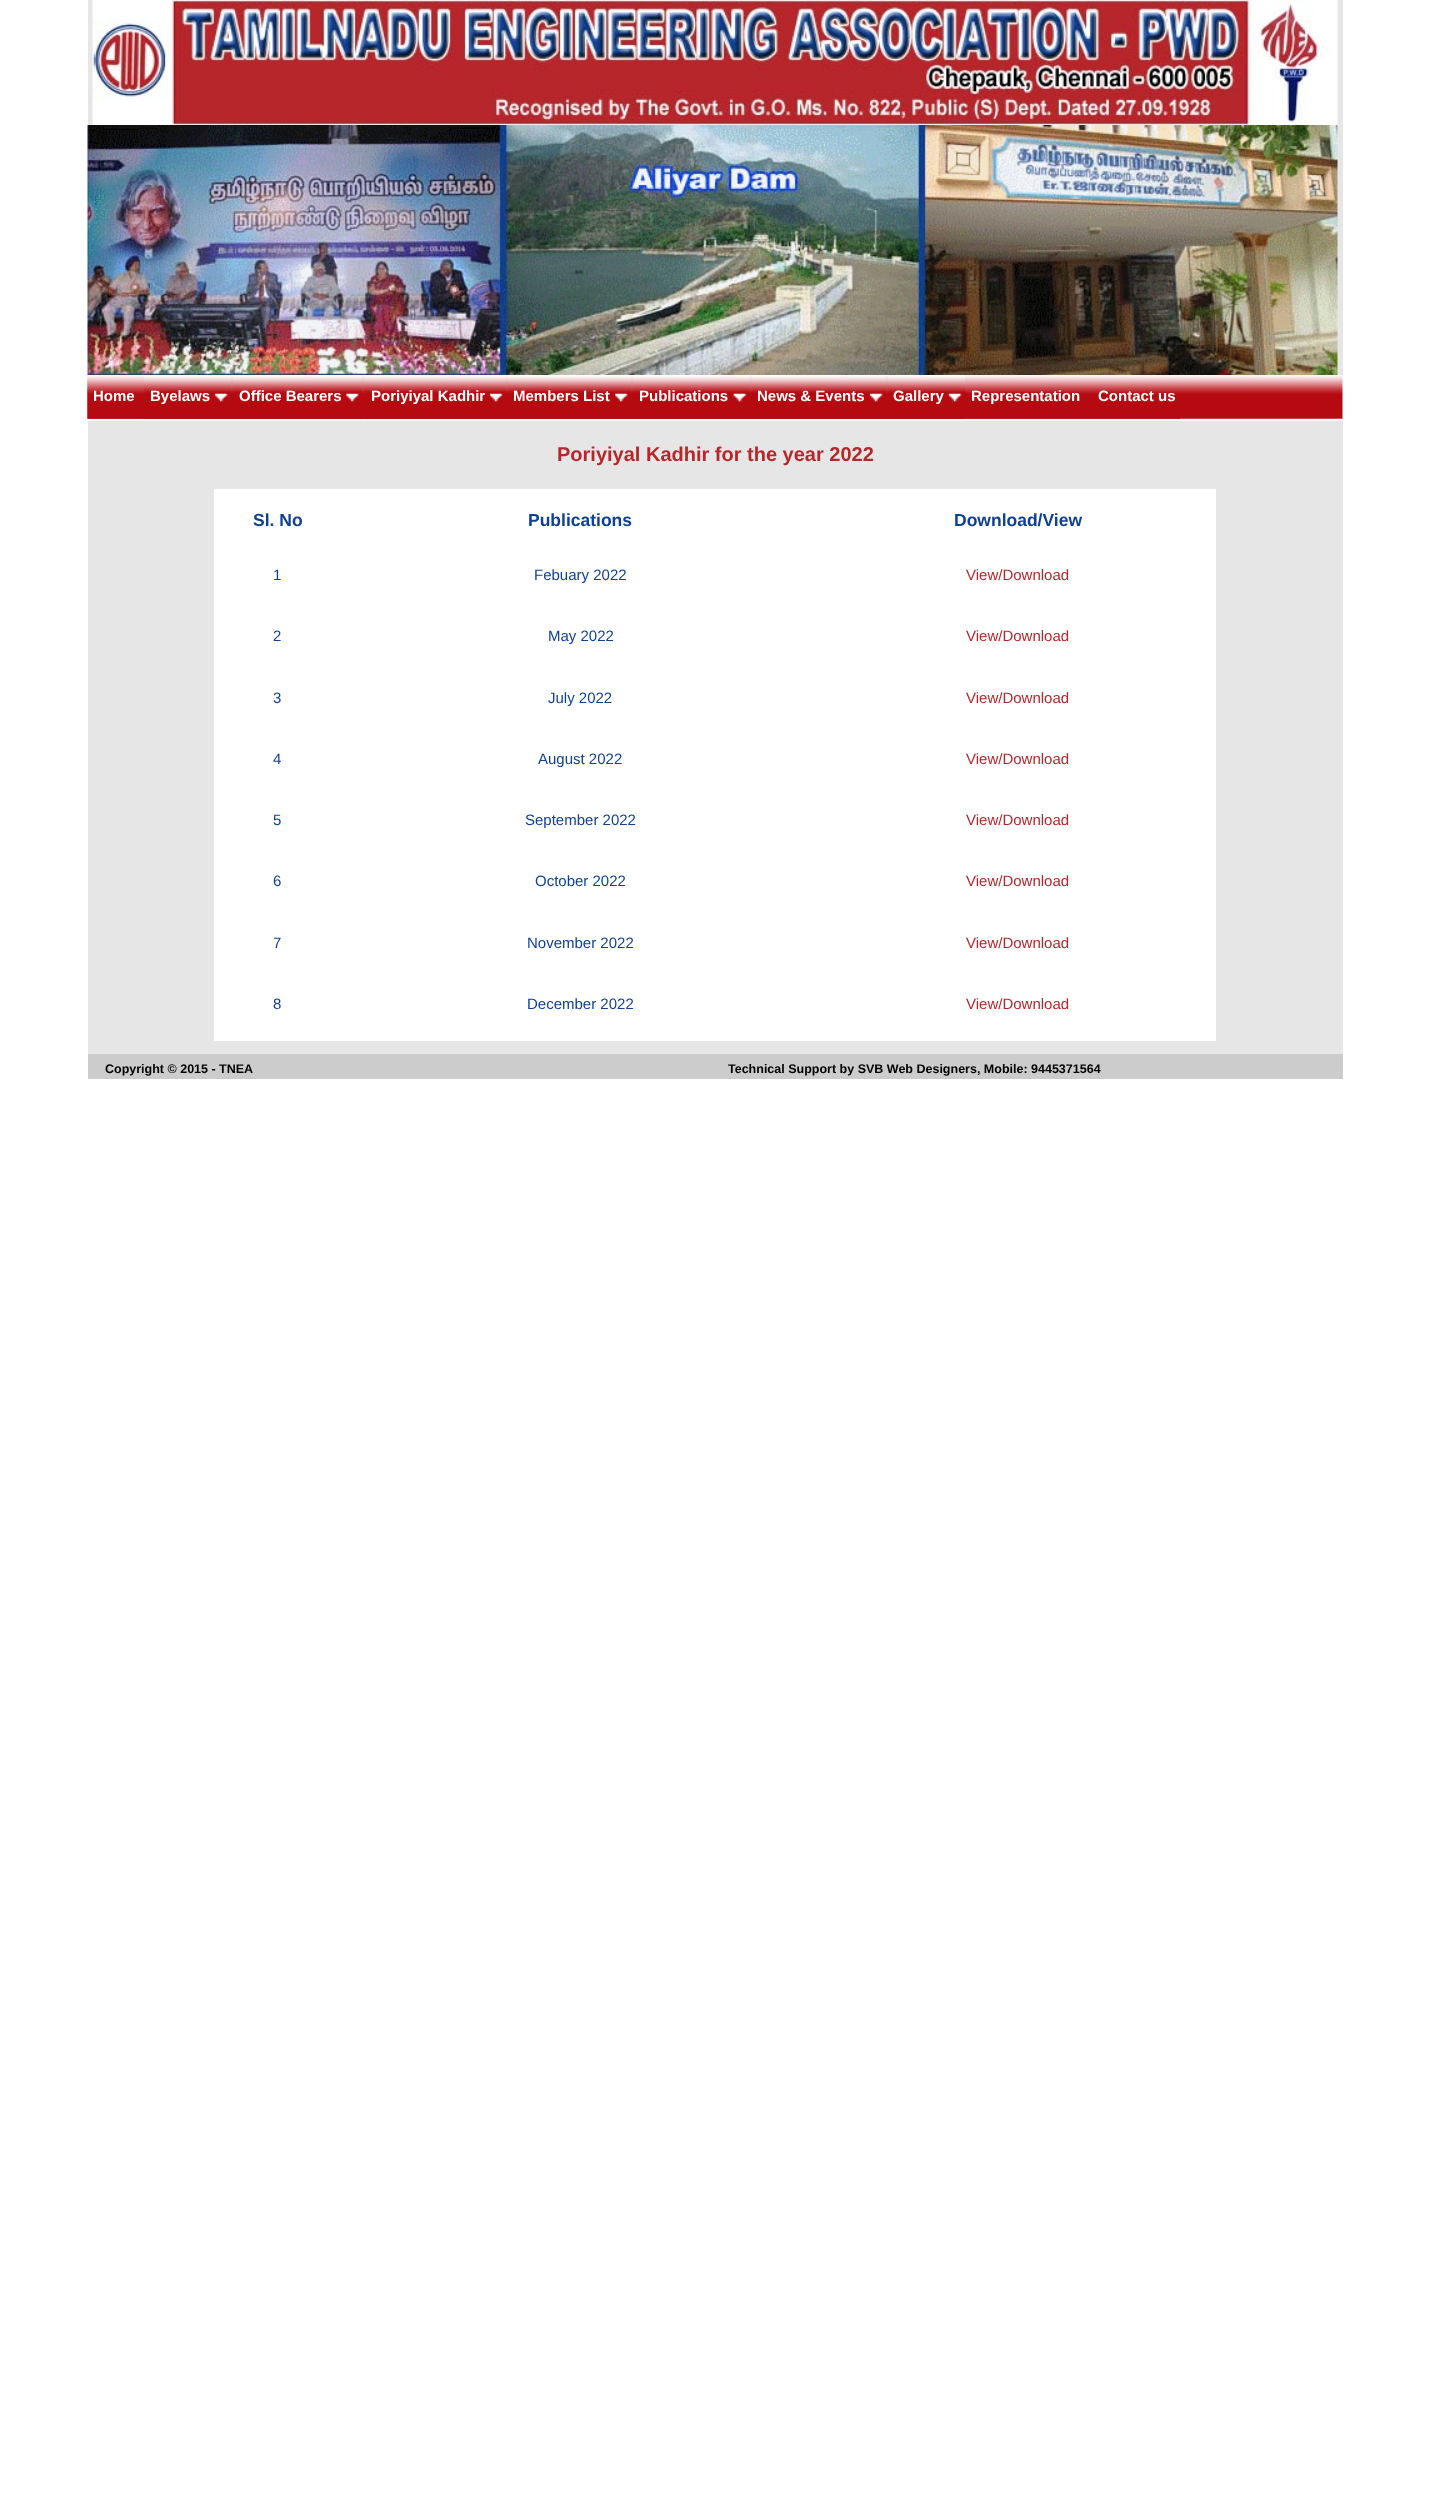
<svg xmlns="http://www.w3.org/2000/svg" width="1429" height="2503">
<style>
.a{font:bold 15px Liberation Sans;fill:#fff}
.b{font:bold 20px Liberation Sans;fill:#b7262b}
.c{font:bold 17.5px Liberation Sans;fill:#0e4093}
.d{font:15px Liberation Sans;fill:#0e4093}
.e{font:15px Liberation Sans;fill:#b7262b}
.f{font:bold 12.5px Liberation Sans;fill:#000}
</style>
<rect width="100%" height="100%" fill="#fff"/>
<path fill="#e7e6e6" d="M88 0h1255v375H88z"/>
<image href="1.png" x="92" y="0" width="1246" height="125"/>
<image href="2.png" x="87" y="125" width="1251" height="250"/>
<image href="3.png" x="87" y="375" width="1256" height="44"/>
<image href="4.png" x="87" y="376" width="56" height="43"/>
<image href="5.png" x="142" y="418" width="90" height="1"/>
<image href="6.png" x="144" y="375" width="88" height="44"/>
<image href="7.png" x="231" y="418" width="132" height="1"/>
<image href="8.png" x="232" y="375" width="131" height="44"/>
<image href="9.png" x="362" y="418" width="145" height="1"/>
<image href="10.png" x="364" y="375" width="143" height="44"/>
<image href="11.png" x="506" y="418" width="126" height="1"/>
<image href="12.png" x="507" y="375" width="125" height="44"/>
<image href="13.png" x="631" y="418" width="119" height="1"/>
<image href="14.png" x="632" y="375" width="118" height="44"/>
<image href="15.png" x="750" y="418" width="137" height="1"/>
<image href="16.png" x="751" y="375" width="136" height="44"/>
<image href="17.png" x="886" y="418" width="79" height="1"/>
<image href="18.png" x="887" y="375" width="78" height="44"/>
<image href="19.png" x="965" y="418" width="124" height="1"/>
<image href="20.png" x="1088" y="418" width="92" height="1"/>
<path fill="#e7e6e6" d="M88 421h1255v633H88z"/>
<path fill="#fff" d="M214 489h1002v552H214z"/>
<path fill="#ccc" d="M88 1054h1255v25H88z"/>
<text class="a" x="93" y="401">Home</text>
<text class="a" x="150" y="401">Byelaws</text>
<text class="a" x="239" y="401">Office Bearers</text>
<text class="a" x="371" y="401">Poriyiyal Kadhir</text>
<text class="a" x="513" y="401">Members List</text>
<text class="a" x="639" y="401">Publications</text>
<text class="a" x="757" y="401">News &amp; Events</text>
<text class="a" x="893" y="401">Gallery</text>
<text class="a" x="971" y="401">Representation</text>
<text class="a" x="1098" y="401">Contact us</text>
<text class="b" x="557" y="461">Poriyiyal Kadhir for the year 2022</text>
<text class="c" x="253" y="526">Sl. No</text>
<text class="c" x="528" y="526">Publications</text>
<text class="c" x="954" y="526">Download/View</text>
<text class="d" x="273" y="580">1</text>
<text class="d" x="534" y="580">Febuary 2022</text>
<text class="e" x="966" y="580">View/Download</text>
<text class="d" x="273" y="641">2</text>
<text class="d" x="548" y="641">May 2022</text>
<text class="e" x="966" y="641">View/Download</text>
<text class="d" x="273" y="703">3</text>
<text class="d" x="548" y="703">July 2022</text>
<text class="e" x="966" y="703">View/Download</text>
<text class="d" x="273" y="764">4</text>
<text class="d" x="538" y="764">August 2022</text>
<text class="e" x="966" y="764">View/Download</text>
<text class="d" x="273" y="825">5</text>
<text class="d" x="525" y="825">September 2022</text>
<text class="e" x="966" y="825">View/Download</text>
<text class="d" x="273" y="886">6</text>
<text class="d" x="535" y="886">October 2022</text>
<text class="e" x="966" y="886">View/Download</text>
<text class="d" x="273" y="948">7</text>
<text class="d" x="527" y="948">November 2022</text>
<text class="e" x="966" y="948">View/Download</text>
<text class="d" x="273" y="1009">8</text>
<text class="d" x="527" y="1009">December 2022</text>
<text class="e" x="966" y="1009">View/Download</text>
<text class="f" x="105" y="1073">Copyright © 2015 - TNEA</text>
<text class="f" x="728" y="1073">Technical Support by SVB Web Designers, Mobile: 9445371564</text>
</svg>
